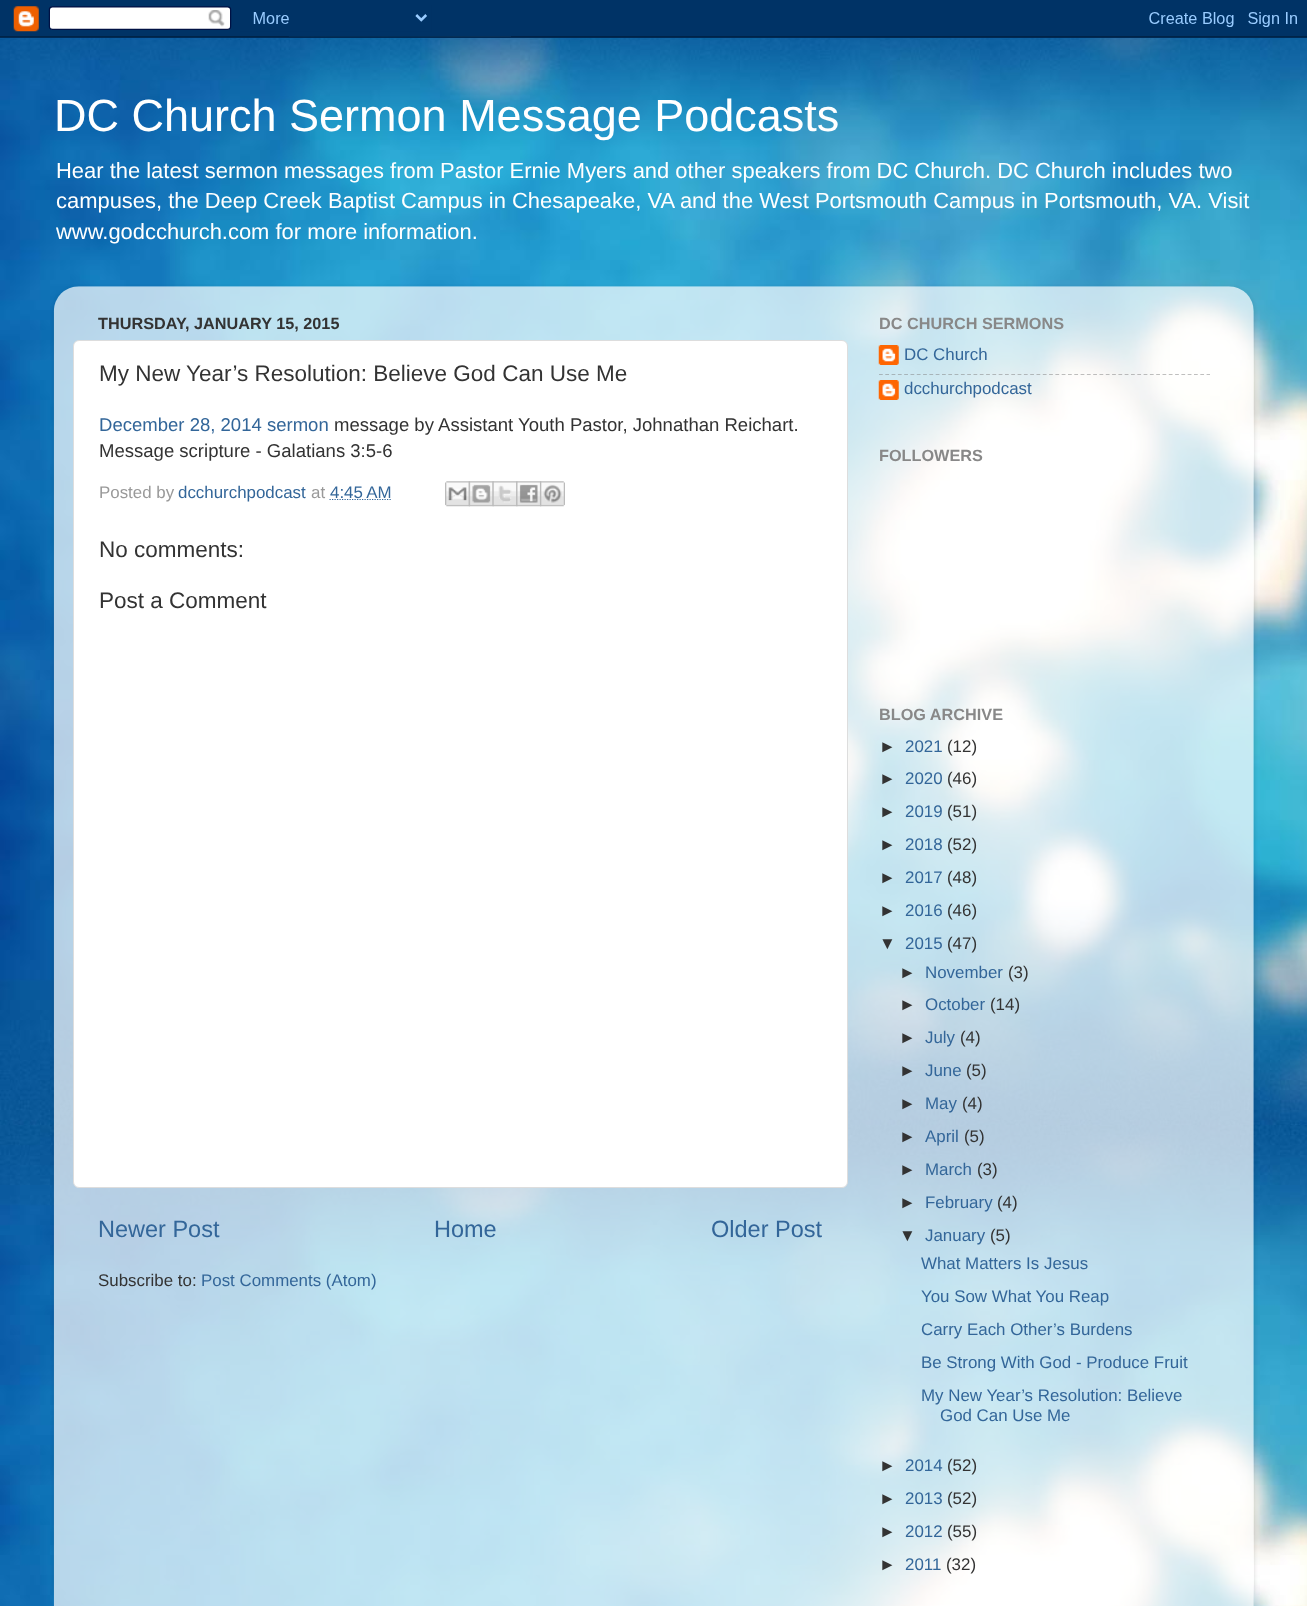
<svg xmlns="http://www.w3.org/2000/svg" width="1307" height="1606">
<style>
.a{font:45px Liberation Sans;fill:#fff}
.b{font:21.95px Liberation Sans;fill:#fff}
.c{font:bold 16.25px Liberation Sans;fill:#333}
.d{font:22.5px Liberation Sans;fill:#333}
.e{font:18.55px Liberation Sans;fill:#369}
.f{font:18.55px Liberation Sans;fill:#333}
.g{font:16.9px Liberation Sans;fill:#999}
.h{font:16.9px Liberation Sans;fill:#369}
.i{font:23.5px Liberation Sans;fill:#369}
.j{font:16.9px Liberation Sans;fill:#333}
.k{font:bold 16.25px Liberation Sans;fill:#888}
</style>
<defs>
<clipPath id="clip1"><path d="M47 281h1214v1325h-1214zm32 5h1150c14 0 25 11 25 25v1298h-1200v-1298c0-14 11-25 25-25z" clip-rule="evenodd"/></clipPath>
</defs>
<rect width="100%" height="100%" fill="#fff"/>
<image href="2.png" x="0" y="36" width="1307" height="1570"/>
<image href="1.png" x="0" y="0" width="1307" height="38"/>
<g clip-path="url(#clip1)">
<rect fill="#00000026" filter="blur(2px)" x="54" y="288" width="1200" height="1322" rx="25"/>
</g>
<image href="3.png" x="53" y="286" width="1201" height="1320"/>
<rect fill="#fff" stroke="#ddd" x="73.5" y="340.5" width="774" height="847" rx="5.5"/>
<path fill="none" stroke="#369" stroke-width="1.2" stroke-dasharray="1.25 1.25" d="M329.5 499.5h61.5"/>
<image href="4.png" x="445" y="481" width="25" height="26"/>
<image href="5.png" x="468" y="481" width="26" height="26"/>
<image href="6.png" x="492" y="481" width="26" height="26"/>
<image href="7.png" x="516" y="481" width="26" height="26"/>
<image href="8.png" x="540" y="481" width="25" height="26"/>
<image href="9.png" x="878" y="345" width="21" height="20"/>
<path fill="none" stroke="#80808080" stroke-width="1.2" stroke-dasharray="3.75 2.55" d="M879 374.5h331"/>
<image href="10.png" x="878" y="380" width="21" height="20"/>
<text class="a" x="54" y="131">DC Church Sermon Message Podcasts</text>
<text class="b" x="56" y="178">Hear the latest sermon messages from Pastor Ernie Myers and other speakers from DC Church. DC Church includes two</text>
<text class="b" x="56" y="208">campuses, the Deep Creek Baptist Campus in Chesapeake, VA and the West Portsmouth Campus in Portsmouth, VA. Visit</text>
<text class="b" x="56" y="239">www.godcchurch.com for more information.</text>
<text class="c" x="98" y="329">THURSDAY, JANUARY 15, 2015</text>
<text class="d" x="99" y="381">My New Year’s Resolution: Believe God Can Use Me</text>
<text class="e" x="99" y="431">December 28, 2014 sermon</text>
<text class="f" x="334" y="431">message by Assistant Youth Pastor, Johnathan Reichart.</text>
<text class="f" x="99" y="457">Message scripture - Galatians 3:5-6</text>
<text class="g" x="99" y="498">Posted by</text>
<text class="h" x="178" y="498">dcchurchpodcast</text>
<text class="g" x="311" y="498">at</text>
<text class="h" x="330" y="498">4:45 AM</text>
<text class="d" x="99" y="557">No comments:</text>
<text class="d" x="99" y="608">Post a Comment</text>
<text class="i" x="98" y="1237">Newer Post</text>
<text class="i" x="434" y="1237">Home</text>
<text class="i" x="711" y="1237">Older Post</text>
<text class="j" x="98" y="1286">Subscribe to:</text>
<text class="h" x="201" y="1286">Post Comments (Atom)</text>
<text class="k" x="879" y="329">DC CHURCH SERMONS</text>
<text class="h" x="904" y="360">DC Church</text>
<text class="h" x="904" y="394">dcchurchpodcast</text>
<text class="k" x="879" y="461">FOLLOWERS</text>
<text class="k" x="879" y="720">BLOG ARCHIVE</text>
<text class="j" x="879" y="752">►</text>
<text class="h" x="905" y="752">2021</text>
<text class="j" x="947" y="752">(12)</text>
<text class="j" x="879" y="784">►</text>
<text class="h" x="905" y="784">2020</text>
<text class="j" x="947" y="784">(46)</text>
<text class="j" x="879" y="817">►</text>
<text class="h" x="905" y="817">2019</text>
<text class="j" x="947" y="817">(51)</text>
<text class="j" x="879" y="850">►</text>
<text class="h" x="905" y="850">2018</text>
<text class="j" x="947" y="850">(52)</text>
<text class="j" x="879" y="883">►</text>
<text class="h" x="905" y="883">2017</text>
<text class="j" x="947" y="883">(48)</text>
<text class="j" x="879" y="916">►</text>
<text class="h" x="905" y="916">2016</text>
<text class="j" x="947" y="916">(46)</text>
<text class="j" x="879" y="949">▼</text>
<text class="h" x="905" y="949">2015</text>
<text class="j" x="947" y="949">(47)</text>
<text class="j" x="899" y="978">►</text>
<text class="h" x="925" y="978">November</text>
<text class="j" x="1008" y="978">(3)</text>
<text class="j" x="899" y="1010">►</text>
<text class="h" x="925" y="1010">October</text>
<text class="j" x="990" y="1010">(14)</text>
<text class="j" x="899" y="1043">►</text>
<text class="h" x="925" y="1043">July</text>
<text class="j" x="960" y="1043">(4)</text>
<text class="j" x="899" y="1076">►</text>
<text class="h" x="925" y="1076">June</text>
<text class="j" x="966" y="1076">(5)</text>
<text class="j" x="899" y="1109">►</text>
<text class="h" x="925" y="1109">May</text>
<text class="j" x="962" y="1109">(4)</text>
<text class="j" x="899" y="1142">►</text>
<text class="h" x="925" y="1142">April</text>
<text class="j" x="964" y="1142">(5)</text>
<text class="j" x="899" y="1175">►</text>
<text class="h" x="925" y="1175">March</text>
<text class="j" x="977" y="1175">(3)</text>
<text class="j" x="899" y="1208">►</text>
<text class="h" x="925" y="1208">February</text>
<text class="j" x="997" y="1208">(4)</text>
<text class="j" x="899" y="1241">▼</text>
<text class="h" x="925" y="1241">January</text>
<text class="j" x="990" y="1241">(5)</text>
<text class="h" x="921" y="1269">What Matters Is Jesus</text>
<text class="h" x="921" y="1302">You Sow What You Reap</text>
<text class="h" x="921" y="1335">Carry Each Other’s Burdens</text>
<text class="h" x="921" y="1368">Be Strong With God - Produce Fruit</text>
<text class="h" x="921" y="1401">My New Year’s Resolution: Believe</text>
<text class="h" x="940" y="1421">God Can Use Me</text>
<text class="j" x="879" y="1471">►</text>
<text class="h" x="905" y="1471">2014</text>
<text class="j" x="947" y="1471">(52)</text>
<text class="j" x="879" y="1504">►</text>
<text class="h" x="905" y="1504">2013</text>
<text class="j" x="947" y="1504">(52)</text>
<text class="j" x="879" y="1537">►</text>
<text class="h" x="905" y="1537">2012</text>
<text class="j" x="947" y="1537">(55)</text>
<text class="j" x="879" y="1570">►</text>
<text class="h" x="905" y="1570">2011</text>
<text class="j" x="946" y="1570">(32)</text>
</svg>
